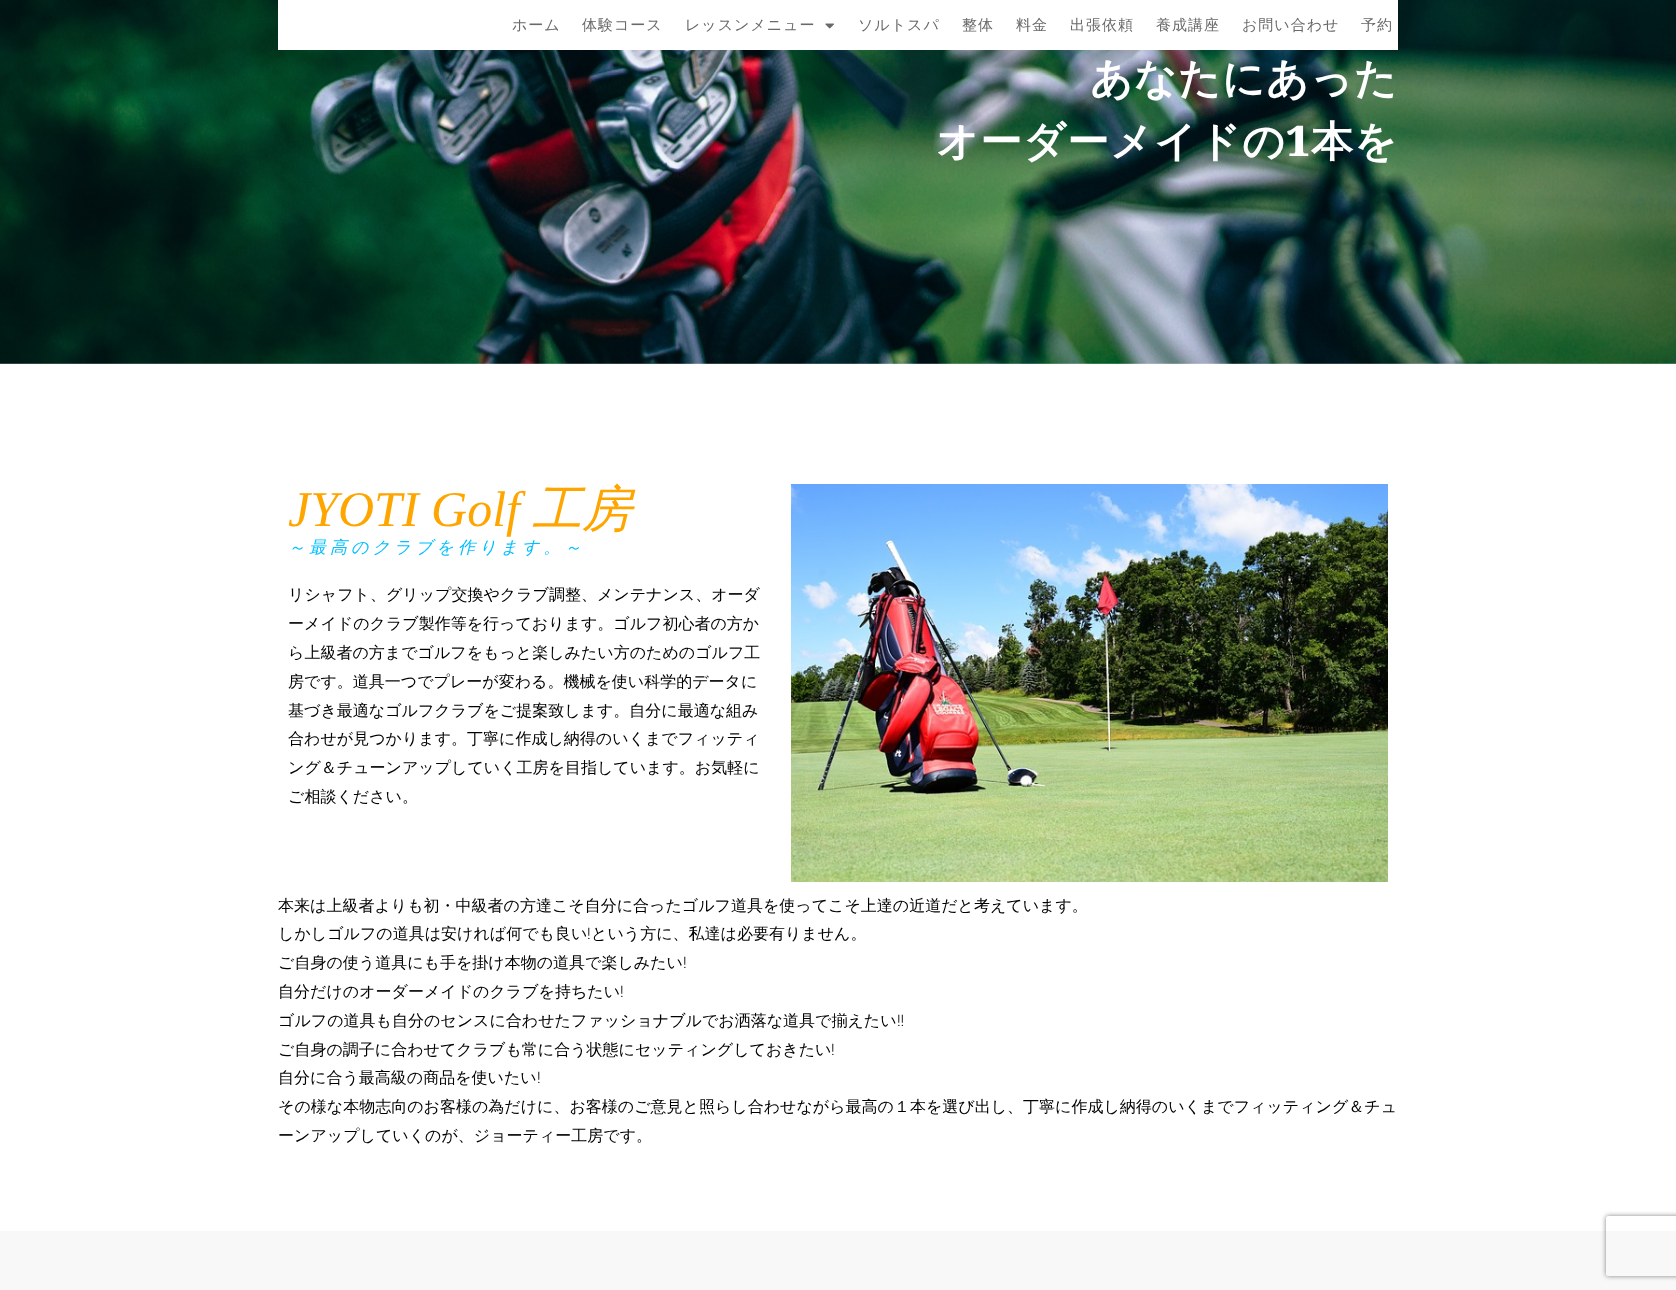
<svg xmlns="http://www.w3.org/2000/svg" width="1676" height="1290">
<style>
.a{font:500 15px WenQuanYi Zen Hei;letter-spacing:1px;fill:#696969}
.b{font:bold 42px WenQuanYi Zen Hei;letter-spacing:1px;fill:#fff}
.c{font:900 42px Noto Serif;letter-spacing:1px;fill:#fff}
.d{font:italic 50px Liberation Serif;fill:#ffa500}
.e{font:italic 500 50px WenQuanYi Zen Hei;fill:#ffa500}
.f{font:italic 500 17px WenQuanYi Zen Hei;letter-spacing:4px;fill:#00bfff}
.g{font:500 16px WenQuanYi Zen Hei;fill:#000}
.h{font:300 16px Roboto;fill:#000}
</style>
<defs>
<clipPath id="clip1"><path d="M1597 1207h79v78h-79zm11 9h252c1 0 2 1 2 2v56c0 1-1 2-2 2h-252c-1 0-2-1-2-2v-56c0-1 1-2 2-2z" clip-rule="evenodd"/></clipPath>
</defs>
<rect width="100%" height="100%" fill="#f8f8f8"/>
<image href="2.png" x="0" y="0" width="1676" height="364"/>
<path fill="#fff" d="M278 0h1120v50H278z"/>
<image href="1.png" x="825" y="23" width="9" height="6"/>
<path fill="#fff" d="M0 364h1676v867H0z"/>
<image href="3.png" x="791" y="484" width="597" height="398"/>
<g clip-path="url(#clip1)">
<rect fill="#808080" filter="blur(2.5px)" x="1606" y="1216" width="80" height="60" rx="2"/>
</g>
<text class="a" x="512" y="30">ホーム</text>
<text class="a" x="582" y="30">体験コース</text>
<text class="a" x="685" y="30">レッスンメニュー</text>
<text class="a" x="858" y="30">ソルトスパ</text>
<text class="a" x="962" y="30">整体</text>
<text class="a" x="1016" y="30">料金</text>
<text class="a" x="1070" y="30">出張依頼</text>
<text class="a" x="1156" y="30">養成講座</text>
<text class="a" x="1242" y="30">お問い合わせ</text>
<text class="a" x="1361" y="30">予約</text>
<text class="b" x="1090" y="93">あなたにあった</text>
<text class="b" x="936" y="156">オーダーメイドの</text>
<text class="c" x="1286" y="156">1</text>
<text class="b" x="1311" y="156">本を</text>
<text class="d" x="288" y="526">JYOTI Golf</text>
<text class="e" x="532" y="526">工房</text>
<text class="f" x="288" y="553">～最高のクラブを作ります。～</text>
<text class="g" x="288" y="600">リシャフト、グリップ交換やクラブ調整、メンテナンス、オーダ</text>
<text class="g" x="288" y="629">ーメイドのクラブ製作等を行っております。ゴルフ初心者の方か</text>
<text class="g" x="288" y="658">ら上級者の方までゴルフをもっと楽しみたい方のためのゴルフ工</text>
<text class="g" x="288" y="687">房です。道具一つでプレーが変わる。機械を使い科学的データに</text>
<text class="g" x="288" y="716">基づき最適なゴルフクラブをご提案致します。自分に最適な組み</text>
<text class="g" x="288" y="744">合わせが見つかります。丁寧に作成し納得のいくまでフィッティ</text>
<text class="g" x="288" y="773">ング＆チューンアップしていく工房を目指しています。お気軽に</text>
<text class="g" x="288" y="802">ご相談ください。</text>
<text class="g" x="278" y="911">本来は上級者よりも初・中級者の方達こそ自分に合ったゴルフ道具を使ってこそ上達の近道だと考えています。</text>
<text class="g" x="278" y="939">しかしゴルフの道具は安ければ何でも良い</text>
<text class="h" x="587" y="939">!</text>
<text class="g" x="591" y="939">という方に、私達は必要有りません。</text>
<text class="g" x="278" y="968">ご自身の使う道具にも手を掛け本物の道具で楽しみたい</text>
<text class="h" x="683" y="968">!</text>
<text class="g" x="278" y="997">自分だけのオーダーメイドのクラブを持ちたい</text>
<text class="h" x="620" y="997">!</text>
<text class="g" x="278" y="1026">ゴルフの道具も自分のセンスに合わせたファッショナブルでお洒落な道具で揃えたい</text>
<text class="h" x="897" y="1026">!!</text>
<text class="g" x="278" y="1055">ご自身の調子に合わせてクラブも常に合う状態にセッティングしておきたい</text>
<text class="h" x="831" y="1055">!</text>
<text class="g" x="278" y="1083">自分に合う最高級の商品を使いたい</text>
<text class="h" x="537" y="1083">!</text>
<text class="g" x="278" y="1112">その様な本物志向のお客様の為だけに、お客様のご意見と照らし合わせながら最高の１本を選び出し、丁寧に作成し納得のいくまでフィッティング＆チュ</text>
<text class="g" x="278" y="1141">ーンアップしていくのが、ジョーティー工房です。</text>
</svg>
